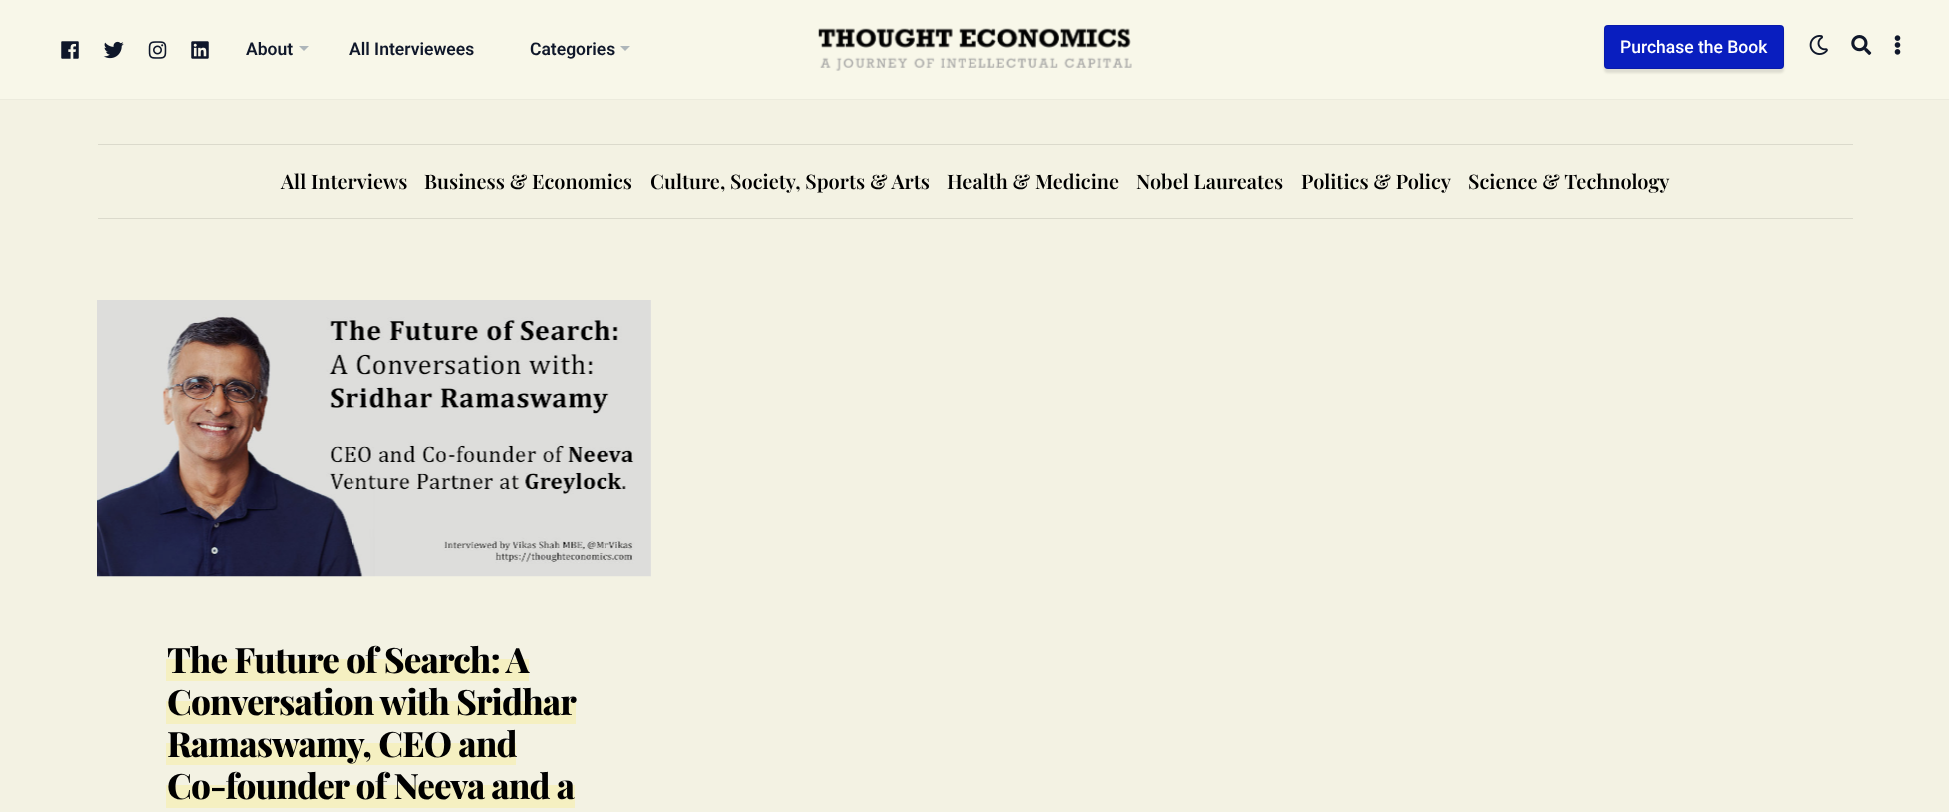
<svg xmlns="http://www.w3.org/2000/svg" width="1949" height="812">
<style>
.a{font:600 17.5px Roboto;fill:#0f172a}
.b{font:500 17.5px Roboto;fill:#fff}
.c{font:600 20px Playfair Display;fill:#000}
.d{font:800 35px Playfair Display;letter-spacing:-0.9px;fill:#000}
</style>
<rect width="100%" height="100%" fill="#f3f2e3"/>
<path fill="#f8f7e9" d="M0 0h1949v99H0z"/>
<path fill="#ecebdd" d="M0 99h1949v1H0z"/>
<image href="1.png" x="61" y="41" width="18" height="18"/>
<image href="2.png" x="103" y="41" width="21" height="18"/>
<image href="3.png" x="148" y="41" width="19" height="18"/>
<image href="4.png" x="191" y="41" width="18" height="18"/>
<path fill="#aeb6ba" d="M299 46h10l-5 5z"/>
<path fill="#aeb6ba" d="M620 46h10l-5 5z"/>
<image href="5.png" x="818" y="28" width="314" height="43"/>
<rect fill="#0000001a" filter="blur(1px)" x="1604" y="29" width="180" height="44" rx="4"/>
<rect fill="#091ebf" x="1604" y="25" width="180" height="44" rx="4"/>
<rect fill="none" stroke="#0000001a" x="1604.5" y="25.5" width="179" height="43" rx="3.5"/>
<image href="6.png" x="1809" y="35" width="19" height="20"/>
<image href="7.png" x="1851" y="35" width="21" height="20"/>
<image href="8.png" x="1894" y="35" width="7" height="20"/>
<path fill="#dbdacc" d="M98 144h1755v1H98z"/>
<path fill="#dbdacc" d="M98 218h1755v1H98z"/>
<image href="9.png" x="97" y="300" width="554" height="277"/>
<path fill="#f5f0c1" d="M166 659h363v22H166z"/>
<path fill="#f5f0c1" d="M166 701h410v23H166z"/>
<path fill="#f5f0c1" d="M166 743h350v22H166z"/>
<path fill="#f5f0c1" d="M166 785h409v23H166z"/>
<text class="a" x="246" y="55">About</text>
<text class="a" x="349" y="55">All Interviewees</text>
<text class="a" x="530" y="55">Categories</text>
<text class="b" x="1620" y="53">Purchase the Book</text>
<text class="c" x="281" y="189">All Interviews</text>
<text class="c" x="424" y="189">Business &amp; Economics</text>
<text class="c" x="650" y="189">Culture, Society, Sports &amp; Arts</text>
<text class="c" x="947" y="189">Health &amp; Medicine</text>
<text class="c" x="1136" y="189">Nobel Laureates</text>
<text class="c" x="1301" y="189">Politics &amp; Policy</text>
<text class="c" x="1468" y="189">Science &amp; Technology</text>
<text class="d" x="167" y="673">The Future of Search: A</text>
<text class="d" x="167" y="715">Conversation with Sridhar</text>
<text class="d" x="167" y="757">Ramaswamy, CEO and</text>
<text class="d" x="167" y="799">Co-founder of Neeva and a</text>
</svg>
